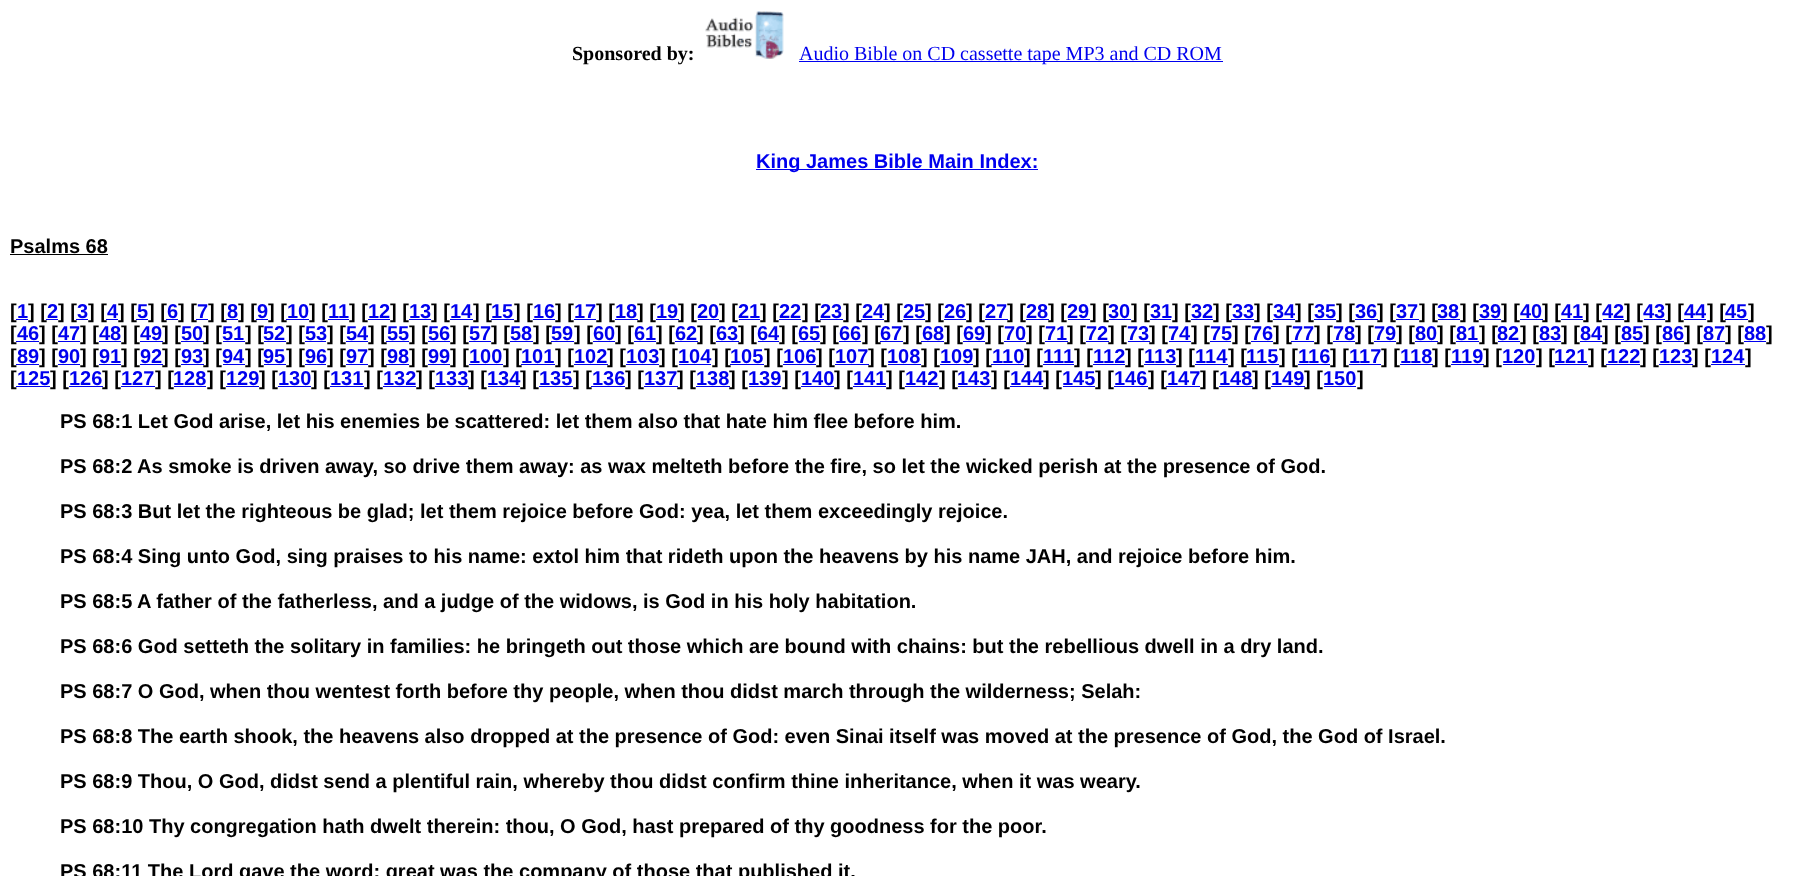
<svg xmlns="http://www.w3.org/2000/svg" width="1793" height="876">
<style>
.a{font:bold 20px Liberation Serif;fill:#000}
.b{font:20px Liberation Serif;fill:#00e}
.c{font:bold 20px Liberation Sans;fill:#00e}
.d{font:bold 20px Liberation Sans;fill:#000}
</style>
<rect width="100%" height="100%" fill="#fff"/>
<image href="1.png" x="705" y="11" width="79" height="48"/>
<path fill="#00e" d="M799 61h424v1H799z"/>
<path fill="#00e" d="M756 169h282v1H756z"/>
<path fill="#000" d="M10 254h98v1H10z"/>
<path fill="#00e" d="M328 319h21v1H328z"/>
<path fill="#00e" d="M368 319h22v1H368z"/>
<path fill="#00e" d="M409 319h22v1H409z"/>
<path fill="#00e" d="M533 319h22v1H533z"/>
<path fill="#00e" d="M574 319h22v1H574z"/>
<path fill="#00e" d="M615 319h23v1H615z"/>
<path fill="#00e" d="M656 319h23v1H656z"/>
<path fill="#00e" d="M698 319h21v1H698z"/>
<path fill="#00e" d="M739 319h21v1H739z"/>
<path fill="#00e" d="M903 319h22v1H903z"/>
<path fill="#00e" d="M944 319h22v1H944z"/>
<path fill="#00e" d="M985 319h23v1H985z"/>
<path fill="#00e" d="M1026 319h23v1H1026z"/>
<path fill="#00e" d="M1068 319h22v1H1068z"/>
<path fill="#00e" d="M1109 319h22v1H1109z"/>
<path fill="#00e" d="M1150 319h21v1H1150z"/>
<path fill="#00e" d="M1191 319h22v1H1191z"/>
<path fill="#00e" d="M1273 319h22v1H1273z"/>
<path fill="#00e" d="M1314 319h22v1H1314z"/>
<path fill="#00e" d="M1355 319h23v1H1355z"/>
<path fill="#00e" d="M1438 319h22v1H1438z"/>
<path fill="#00e" d="M1479 319h22v1H1479z"/>
<path fill="#00e" d="M1520 319h23v1H1520z"/>
<path fill="#00e" d="M1561 319h22v1H1561z"/>
<path fill="#00e" d="M1603 319h21v1H1603z"/>
<path fill="#00e" d="M1644 319h21v1H1644z"/>
<path fill="#00e" d="M1684 319h22v1H1684z"/>
<path fill="#00e" d="M58 341h22v1H58z"/>
<path fill="#00e" d="M99 341h22v1H99z"/>
<path fill="#00e" d="M140 341h23v1H140z"/>
<path fill="#00e" d="M181 341h23v1H181z"/>
<path fill="#00e" d="M223 341h22v1H223z"/>
<path fill="#00e" d="M264 341h22v1H264z"/>
<path fill="#00e" d="M305 341h21v1H305z"/>
<path fill="#00e" d="M346 341h22v1H346z"/>
<path fill="#00e" d="M428 341h22v1H428z"/>
<path fill="#00e" d="M469 341h22v1H469z"/>
<path fill="#00e" d="M510 341h23v1H510z"/>
<path fill="#00e" d="M593 341h22v1H593z"/>
<path fill="#00e" d="M634 341h22v1H634z"/>
<path fill="#00e" d="M675 341h23v1H675z"/>
<path fill="#00e" d="M716 341h23v1H716z"/>
<path fill="#00e" d="M758 341h21v1H758z"/>
<path fill="#00e" d="M799 341h21v1H799z"/>
<path fill="#00e" d="M963 341h22v1H963z"/>
<path fill="#00e" d="M1004 341h22v1H1004z"/>
<path fill="#00e" d="M1045 341h23v1H1045z"/>
<path fill="#00e" d="M1086 341h23v1H1086z"/>
<path fill="#00e" d="M1128 341h22v1H1128z"/>
<path fill="#00e" d="M1169 341h22v1H1169z"/>
<path fill="#00e" d="M1210 341h21v1H1210z"/>
<path fill="#00e" d="M1251 341h22v1H1251z"/>
<path fill="#00e" d="M1333 341h22v1H1333z"/>
<path fill="#00e" d="M1374 341h22v1H1374z"/>
<path fill="#00e" d="M1415 341h23v1H1415z"/>
<path fill="#00e" d="M1498 341h22v1H1498z"/>
<path fill="#00e" d="M1539 341h22v1H1539z"/>
<path fill="#00e" d="M1580 341h23v1H1580z"/>
<path fill="#00e" d="M1621 341h22v1H1621z"/>
<path fill="#00e" d="M1663 341h21v1H1663z"/>
<path fill="#00e" d="M1703 341h22v1H1703z"/>
<path fill="#00e" d="M1744 341h22v1H1744z"/>
<path fill="#00e" d="M58 364h22v1H58z"/>
<path fill="#00e" d="M99 364h22v1H99z"/>
<path fill="#00e" d="M140 364h23v1H140z"/>
<path fill="#00e" d="M181 364h23v1H181z"/>
<path fill="#00e" d="M223 364h22v1H223z"/>
<path fill="#00e" d="M264 364h22v1H264z"/>
<path fill="#00e" d="M305 364h21v1H305z"/>
<path fill="#00e" d="M346 364h22v1H346z"/>
<path fill="#00e" d="M428 364h22v1H428z"/>
<path fill="#00e" d="M469 364h34v1H469z"/>
<path fill="#00e" d="M574 364h34v1H574z"/>
<path fill="#00e" d="M626 364h33v1H626z"/>
<path fill="#00e" d="M679 364h32v1H679z"/>
<path fill="#00e" d="M783 364h33v1H783z"/>
<path fill="#00e" d="M835 364h34v1H835z"/>
<path fill="#00e" d="M888 364h33v1H888z"/>
<path fill="#00e" d="M940 364h33v1H940z"/>
<path fill="#00e" d="M1043 364h31v1H1043z"/>
<path fill="#00e" d="M1093 364h32v1H1093z"/>
<path fill="#00e" d="M1144 364h32v1H1144z"/>
<path fill="#00e" d="M1298 364h32v1H1298z"/>
<path fill="#00e" d="M1349 364h32v1H1349z"/>
<path fill="#00e" d="M1400 364h33v1H1400z"/>
<path fill="#00e" d="M1451 364h33v1H1451z"/>
<path fill="#00e" d="M1503 364h32v1H1503z"/>
<path fill="#00e" d="M1555 364h33v1H1555z"/>
<path fill="#00e" d="M1659 364h34v1H1659z"/>
<path fill="#00e" d="M69 386h34v1H69z"/>
<path fill="#00e" d="M121 386h34v1H121z"/>
<path fill="#00e" d="M174 386h32v1H174z"/>
<path fill="#00e" d="M226 386h33v1H226z"/>
<path fill="#00e" d="M278 386h33v1H278z"/>
<path fill="#00e" d="M330 386h34v1H330z"/>
<path fill="#00e" d="M383 386h33v1H383z"/>
<path fill="#00e" d="M435 386h34v1H435z"/>
<path fill="#00e" d="M488 386h32v1H488z"/>
<path fill="#00e" d="M644 386h34v1H644z"/>
<path fill="#00e" d="M696 386h34v1H696z"/>
<path fill="#00e" d="M749 386h32v1H749z"/>
<path fill="#00e" d="M801 386h33v1H801z"/>
<path fill="#00e" d="M853 386h33v1H853z"/>
<path fill="#00e" d="M905 386h34v1H905z"/>
<path fill="#00e" d="M958 386h33v1H958z"/>
<path fill="#00e" d="M1010 386h33v1H1010z"/>
<path fill="#00e" d="M1063 386h32v1H1063z"/>
<path fill="#00e" d="M1114 386h34v1H1114z"/>
<path fill="#00e" d="M1219 386h34v1H1219z"/>
<path fill="#00e" d="M1271 386h34v1H1271z"/>
<path fill="#00e" d="M1324 386h32v1H1324z"/>
<text class="a" x="572" y="60">Sponsored by:</text>
<text class="b" x="799" y="60">Audio Bible on CD cassette tape MP3 and CD ROM</text>
<text class="c" x="756" y="168">King James Bible Main Index:</text>
<text class="d" x="10" y="253">Psalms 68</text>
<text class="d" x="10" y="318">[</text>
<path fill="#00e" d="M16 319h12v1H16z"/>
<text class="c" x="17" y="318">1</text>
<text class="d" x="28" y="318">] [</text>
<path fill="#00e" d="M46 319h12v1H46z"/>
<text class="c" x="47" y="318">2</text>
<text class="d" x="58" y="318">] [</text>
<path fill="#00e" d="M76 319h12v1H76z"/>
<text class="c" x="77" y="318">3</text>
<text class="d" x="88" y="318">] [</text>
<path fill="#00e" d="M106 319h12v1H106z"/>
<text class="c" x="107" y="318">4</text>
<text class="d" x="118" y="318">] [</text>
<path fill="#00e" d="M136 319h12v1H136z"/>
<text class="c" x="137" y="318">5</text>
<text class="d" x="148" y="318">] [</text>
<path fill="#00e" d="M166 319h12v1H166z"/>
<text class="c" x="167" y="318">6</text>
<text class="d" x="178" y="318">] [</text>
<path fill="#00e" d="M196 319h12v1H196z"/>
<text class="c" x="197" y="318">7</text>
<text class="d" x="208" y="318">] [</text>
<path fill="#00e" d="M226 319h12v1H226z"/>
<text class="c" x="227" y="318">8</text>
<text class="d" x="238" y="318">] [</text>
<path fill="#00e" d="M256 319h12v1H256z"/>
<text class="c" x="257" y="318">9</text>
<text class="d" x="268" y="318">] [</text>
<path fill="#00e" d="M286 319h23v1H286z"/>
<text class="c" x="287" y="318">10</text>
<text class="d" x="309" y="318">] [</text>
<text class="c" x="328" y="318">11</text>
<text class="d" x="349" y="318">] [</text>
<text class="c" x="368" y="318">12</text>
<text class="d" x="390" y="318">] [</text>
<text class="c" x="409" y="318">13</text>
<text class="d" x="431" y="318">] [</text>
<path fill="#00e" d="M450 319h23v1H450z"/>
<text class="c" x="450" y="318">14</text>
<text class="d" x="473" y="318">] [</text>
<path fill="#00e" d="M491 319h23v1H491z"/>
<text class="c" x="491" y="318">15</text>
<text class="d" x="514" y="318">] [</text>
<text class="c" x="533" y="318">16</text>
<text class="d" x="555" y="318">] [</text>
<text class="c" x="574" y="318">17</text>
<text class="d" x="596" y="318">] [</text>
<text class="c" x="615" y="318">18</text>
<text class="d" x="637" y="318">] [</text>
<text class="c" x="656" y="318">19</text>
<text class="d" x="678" y="318">] [</text>
<text class="c" x="697" y="318">20</text>
<text class="d" x="719" y="318">] [</text>
<text class="c" x="738" y="318">21</text>
<text class="d" x="760" y="318">] [</text>
<path fill="#00e" d="M779 319h22v1H779z"/>
<text class="c" x="779" y="318">22</text>
<text class="d" x="802" y="318">] [</text>
<path fill="#00e" d="M820 319h23v1H820z"/>
<text class="c" x="820" y="318">23</text>
<text class="d" x="843" y="318">] [</text>
<path fill="#00e" d="M861 319h23v1H861z"/>
<text class="c" x="862" y="318">24</text>
<text class="d" x="884" y="318">] [</text>
<text class="c" x="903" y="318">25</text>
<text class="d" x="925" y="318">] [</text>
<text class="c" x="944" y="318">26</text>
<text class="d" x="966" y="318">] [</text>
<text class="c" x="985" y="318">27</text>
<text class="d" x="1007" y="318">] [</text>
<text class="c" x="1026" y="318">28</text>
<text class="d" x="1048" y="318">] [</text>
<text class="c" x="1067" y="318">29</text>
<text class="d" x="1090" y="318">] [</text>
<text class="c" x="1108" y="318">30</text>
<text class="d" x="1131" y="318">] [</text>
<text class="c" x="1150" y="318">31</text>
<text class="d" x="1172" y="318">] [</text>
<text class="c" x="1191" y="318">32</text>
<text class="d" x="1213" y="318">] [</text>
<path fill="#00e" d="M1231 319h23v1H1231z"/>
<text class="c" x="1232" y="318">33</text>
<text class="d" x="1254" y="318">] [</text>
<text class="c" x="1273" y="318">34</text>
<text class="d" x="1295" y="318">] [</text>
<text class="c" x="1314" y="318">35</text>
<text class="d" x="1336" y="318">] [</text>
<text class="c" x="1355" y="318">36</text>
<text class="d" x="1377" y="318">] [</text>
<path fill="#00e" d="M1396 319h23v1H1396z"/>
<text class="c" x="1396" y="318">37</text>
<text class="d" x="1419" y="318">] [</text>
<text class="c" x="1437" y="318">38</text>
<text class="d" x="1460" y="318">] [</text>
<text class="c" x="1479" y="318">39</text>
<text class="d" x="1501" y="318">] [</text>
<text class="c" x="1520" y="318">40</text>
<text class="d" x="1542" y="318">] [</text>
<text class="c" x="1561" y="318">41</text>
<text class="d" x="1583" y="318">] [</text>
<text class="c" x="1602" y="318">42</text>
<text class="d" x="1624" y="318">] [</text>
<text class="c" x="1643" y="318">43</text>
<text class="d" x="1665" y="318">] [</text>
<text class="c" x="1684" y="318">44</text>
<text class="d" x="1707" y="318">] [</text>
<path fill="#00e" d="M1725 319h23v1H1725z"/>
<text class="c" x="1725" y="318">45</text>
<text class="d" x="1748" y="318">]</text>
<text class="d" x="10" y="340">[</text>
<path fill="#00e" d="M16 341h23v1H16z"/>
<text class="c" x="17" y="340">46</text>
<text class="d" x="39" y="340">] [</text>
<text class="c" x="58" y="340">47</text>
<text class="d" x="80" y="340">] [</text>
<text class="c" x="99" y="340">48</text>
<text class="d" x="121" y="340">] [</text>
<text class="c" x="140" y="340">49</text>
<text class="d" x="162" y="340">] [</text>
<text class="c" x="181" y="340">50</text>
<text class="d" x="203" y="340">] [</text>
<text class="c" x="222" y="340">51</text>
<text class="d" x="245" y="340">] [</text>
<text class="c" x="263" y="340">52</text>
<text class="d" x="286" y="340">] [</text>
<text class="c" x="305" y="340">53</text>
<text class="d" x="327" y="340">] [</text>
<text class="c" x="346" y="340">54</text>
<text class="d" x="368" y="340">] [</text>
<path fill="#00e" d="M386 341h23v1H386z"/>
<text class="c" x="387" y="340">55</text>
<text class="d" x="409" y="340">] [</text>
<text class="c" x="428" y="340">56</text>
<text class="d" x="450" y="340">] [</text>
<text class="c" x="469" y="340">57</text>
<text class="d" x="491" y="340">] [</text>
<text class="c" x="510" y="340">58</text>
<text class="d" x="533" y="340">] [</text>
<path fill="#00e" d="M551 341h23v1H551z"/>
<text class="c" x="551" y="340">59</text>
<text class="d" x="574" y="340">] [</text>
<text class="c" x="593" y="340">60</text>
<text class="d" x="615" y="340">] [</text>
<text class="c" x="634" y="340">61</text>
<text class="d" x="656" y="340">] [</text>
<text class="c" x="675" y="340">62</text>
<text class="d" x="697" y="340">] [</text>
<text class="c" x="716" y="340">63</text>
<text class="d" x="738" y="340">] [</text>
<text class="c" x="757" y="340">64</text>
<text class="d" x="779" y="340">] [</text>
<text class="c" x="798" y="340">65</text>
<text class="d" x="820" y="340">] [</text>
<path fill="#00e" d="M839 341h22v1H839z"/>
<text class="c" x="839" y="340">66</text>
<text class="d" x="862" y="340">] [</text>
<path fill="#00e" d="M880 341h23v1H880z"/>
<text class="c" x="880" y="340">67</text>
<text class="d" x="903" y="340">] [</text>
<path fill="#00e" d="M921 341h23v1H921z"/>
<text class="c" x="922" y="340">68</text>
<text class="d" x="944" y="340">] [</text>
<text class="c" x="963" y="340">69</text>
<text class="d" x="985" y="340">] [</text>
<text class="c" x="1004" y="340">70</text>
<text class="d" x="1026" y="340">] [</text>
<text class="c" x="1045" y="340">71</text>
<text class="d" x="1067" y="340">] [</text>
<text class="c" x="1086" y="340">72</text>
<text class="d" x="1108" y="340">] [</text>
<text class="c" x="1127" y="340">73</text>
<text class="d" x="1149" y="340">] [</text>
<text class="c" x="1168" y="340">74</text>
<text class="d" x="1191" y="340">] [</text>
<text class="c" x="1210" y="340">75</text>
<text class="d" x="1232" y="340">] [</text>
<text class="c" x="1251" y="340">76</text>
<text class="d" x="1273" y="340">] [</text>
<path fill="#00e" d="M1291 341h23v1H1291z"/>
<text class="c" x="1292" y="340">77</text>
<text class="d" x="1314" y="340">] [</text>
<text class="c" x="1333" y="340">78</text>
<text class="d" x="1355" y="340">] [</text>
<text class="c" x="1374" y="340">79</text>
<text class="d" x="1396" y="340">] [</text>
<text class="c" x="1415" y="340">80</text>
<text class="d" x="1437" y="340">] [</text>
<path fill="#00e" d="M1456 341h23v1H1456z"/>
<text class="c" x="1456" y="340">81</text>
<text class="d" x="1479" y="340">] [</text>
<text class="c" x="1497" y="340">82</text>
<text class="d" x="1520" y="340">] [</text>
<text class="c" x="1539" y="340">83</text>
<text class="d" x="1561" y="340">] [</text>
<text class="c" x="1580" y="340">84</text>
<text class="d" x="1602" y="340">] [</text>
<text class="c" x="1621" y="340">85</text>
<text class="d" x="1643" y="340">] [</text>
<text class="c" x="1662" y="340">86</text>
<text class="d" x="1684" y="340">] [</text>
<text class="c" x="1703" y="340">87</text>
<text class="d" x="1725" y="340">] [</text>
<text class="c" x="1744" y="340">88</text>
<text class="d" x="1766" y="340">]</text>
<text class="d" x="10" y="363">[</text>
<path fill="#00e" d="M16 364h23v1H16z"/>
<text class="c" x="17" y="363">89</text>
<text class="d" x="39" y="363">] [</text>
<text class="c" x="58" y="363">90</text>
<text class="d" x="80" y="363">] [</text>
<text class="c" x="99" y="363">91</text>
<text class="d" x="121" y="363">] [</text>
<text class="c" x="140" y="363">92</text>
<text class="d" x="162" y="363">] [</text>
<text class="c" x="181" y="363">93</text>
<text class="d" x="203" y="363">] [</text>
<text class="c" x="222" y="363">94</text>
<text class="d" x="245" y="363">] [</text>
<text class="c" x="263" y="363">95</text>
<text class="d" x="286" y="363">] [</text>
<text class="c" x="305" y="363">96</text>
<text class="d" x="327" y="363">] [</text>
<text class="c" x="346" y="363">97</text>
<text class="d" x="368" y="363">] [</text>
<path fill="#00e" d="M386 364h23v1H386z"/>
<text class="c" x="387" y="363">98</text>
<text class="d" x="409" y="363">] [</text>
<text class="c" x="428" y="363">99</text>
<text class="d" x="450" y="363">] [</text>
<text class="c" x="469" y="363">100</text>
<text class="d" x="503" y="363">] [</text>
<path fill="#00e" d="M521 364h34v1H521z"/>
<text class="c" x="521" y="363">101</text>
<text class="d" x="555" y="363">] [</text>
<text class="c" x="574" y="363">102</text>
<text class="d" x="607" y="363">] [</text>
<text class="c" x="626" y="363">103</text>
<text class="d" x="659" y="363">] [</text>
<text class="c" x="678" y="363">104</text>
<text class="d" x="712" y="363">] [</text>
<path fill="#00e" d="M730 364h34v1H730z"/>
<text class="c" x="730" y="363">105</text>
<text class="d" x="764" y="363">] [</text>
<text class="c" x="783" y="363">106</text>
<text class="d" x="816" y="363">] [</text>
<text class="c" x="835" y="363">107</text>
<text class="d" x="868" y="363">] [</text>
<text class="c" x="887" y="363">108</text>
<text class="d" x="921" y="363">] [</text>
<text class="c" x="940" y="363">109</text>
<text class="d" x="973" y="363">] [</text>
<path fill="#00e" d="M991 364h33v1H991z"/>
<text class="c" x="992" y="363">110</text>
<text class="d" x="1024" y="363">] [</text>
<text class="c" x="1043" y="363">111</text>
<text class="d" x="1074" y="363">] [</text>
<text class="c" x="1093" y="363">112</text>
<text class="d" x="1125" y="363">] [</text>
<text class="c" x="1144" y="363">113</text>
<text class="d" x="1176" y="363">] [</text>
<path fill="#00e" d="M1195 364h33v1H1195z"/>
<text class="c" x="1195" y="363">114</text>
<text class="d" x="1228" y="363">] [</text>
<path fill="#00e" d="M1246 364h33v1H1246z"/>
<text class="c" x="1246" y="363">115</text>
<text class="d" x="1279" y="363">] [</text>
<text class="c" x="1298" y="363">116</text>
<text class="d" x="1330" y="363">] [</text>
<text class="c" x="1349" y="363">117</text>
<text class="d" x="1381" y="363">] [</text>
<text class="c" x="1400" y="363">118</text>
<text class="d" x="1432" y="363">] [</text>
<text class="c" x="1451" y="363">119</text>
<text class="d" x="1483" y="363">] [</text>
<text class="c" x="1502" y="363">120</text>
<text class="d" x="1536" y="363">] [</text>
<text class="c" x="1554" y="363">121</text>
<text class="d" x="1588" y="363">] [</text>
<path fill="#00e" d="M1606 364h34v1H1606z"/>
<text class="c" x="1607" y="363">122</text>
<text class="d" x="1640" y="363">] [</text>
<text class="c" x="1659" y="363">123</text>
<text class="d" x="1692" y="363">] [</text>
<path fill="#00e" d="M1711 364h34v1H1711z"/>
<text class="c" x="1711" y="363">124</text>
<text class="d" x="1745" y="363">]</text>
<text class="d" x="10" y="385">[</text>
<path fill="#00e" d="M16 386h34v1H16z"/>
<text class="c" x="17" y="385">125</text>
<text class="d" x="50" y="385">] [</text>
<text class="c" x="69" y="385">126</text>
<text class="d" x="102" y="385">] [</text>
<text class="c" x="121" y="385">127</text>
<text class="d" x="155" y="385">] [</text>
<text class="c" x="173" y="385">128</text>
<text class="d" x="207" y="385">] [</text>
<text class="c" x="226" y="385">129</text>
<text class="d" x="259" y="385">] [</text>
<text class="c" x="278" y="385">130</text>
<text class="d" x="311" y="385">] [</text>
<text class="c" x="330" y="385">131</text>
<text class="d" x="364" y="385">] [</text>
<text class="c" x="383" y="385">132</text>
<text class="d" x="416" y="385">] [</text>
<text class="c" x="435" y="385">133</text>
<text class="d" x="468" y="385">] [</text>
<text class="c" x="487" y="385">134</text>
<text class="d" x="520" y="385">] [</text>
<path fill="#00e" d="M539 386h34v1H539z"/>
<text class="c" x="539" y="385">135</text>
<text class="d" x="573" y="385">] [</text>
<path fill="#00e" d="M591 386h34v1H591z"/>
<text class="c" x="592" y="385">136</text>
<text class="d" x="625" y="385">] [</text>
<text class="c" x="644" y="385">137</text>
<text class="d" x="677" y="385">] [</text>
<text class="c" x="696" y="385">138</text>
<text class="d" x="729" y="385">] [</text>
<text class="c" x="748" y="385">139</text>
<text class="d" x="782" y="385">] [</text>
<text class="c" x="801" y="385">140</text>
<text class="d" x="834" y="385">] [</text>
<text class="c" x="853" y="385">141</text>
<text class="d" x="886" y="385">] [</text>
<text class="c" x="905" y="385">142</text>
<text class="d" x="939" y="385">] [</text>
<text class="c" x="957" y="385">143</text>
<text class="d" x="991" y="385">] [</text>
<text class="c" x="1010" y="385">144</text>
<text class="d" x="1043" y="385">] [</text>
<text class="c" x="1062" y="385">145</text>
<text class="d" x="1095" y="385">] [</text>
<text class="c" x="1114" y="385">146</text>
<text class="d" x="1148" y="385">] [</text>
<path fill="#00e" d="M1166 386h34v1H1166z"/>
<text class="c" x="1167" y="385">147</text>
<text class="d" x="1200" y="385">] [</text>
<text class="c" x="1219" y="385">148</text>
<text class="d" x="1252" y="385">] [</text>
<text class="c" x="1271" y="385">149</text>
<text class="d" x="1304" y="385">] [</text>
<text class="c" x="1323" y="385">150</text>
<text class="d" x="1357" y="385">]</text>
<text class="d" x="60" y="428">PS 68:1 Let God arise, let his enemies be scattered: let them also that hate him flee before him.</text>
<text class="d" x="60" y="473">PS 68:2 As smoke is driven away, so drive them away: as wax melteth before the fire, so let the wicked perish at the presence of God.</text>
<text class="d" x="60" y="518">PS 68:3 But let the righteous be glad; let them rejoice before God: yea, let them exceedingly rejoice.</text>
<text class="d" x="60" y="563">PS 68:4 Sing unto God, sing praises to his name: extol him that rideth upon the heavens by his name JAH, and rejoice before him.</text>
<text class="d" x="60" y="608">PS 68:5 A father of the fatherless, and a judge of the widows, is God in his holy habitation.</text>
<text class="d" x="60" y="653">PS 68:6 God setteth the solitary in families: he bringeth out those which are bound with chains: but the rebellious dwell in a dry land.</text>
<text class="d" x="60" y="698">PS 68:7 O God, when thou wentest forth before thy people, when thou didst march through the wilderness; Selah:</text>
<text class="d" x="60" y="743">PS 68:8 The earth shook, the heavens also dropped at the presence of God: even Sinai itself was moved at the presence of God, the God of Israel.</text>
<text class="d" x="60" y="788">PS 68:9 Thou, O God, didst send a plentiful rain, whereby thou didst confirm thine inheritance, when it was weary.</text>
<text class="d" x="60" y="833">PS 68:10 Thy congregation hath dwelt therein: thou, O God, hast prepared of thy goodness for the poor.</text>
<text class="d" x="60" y="878">PS 68:11 The Lord gave the word: great was the company of those that published it.</text>
</svg>
